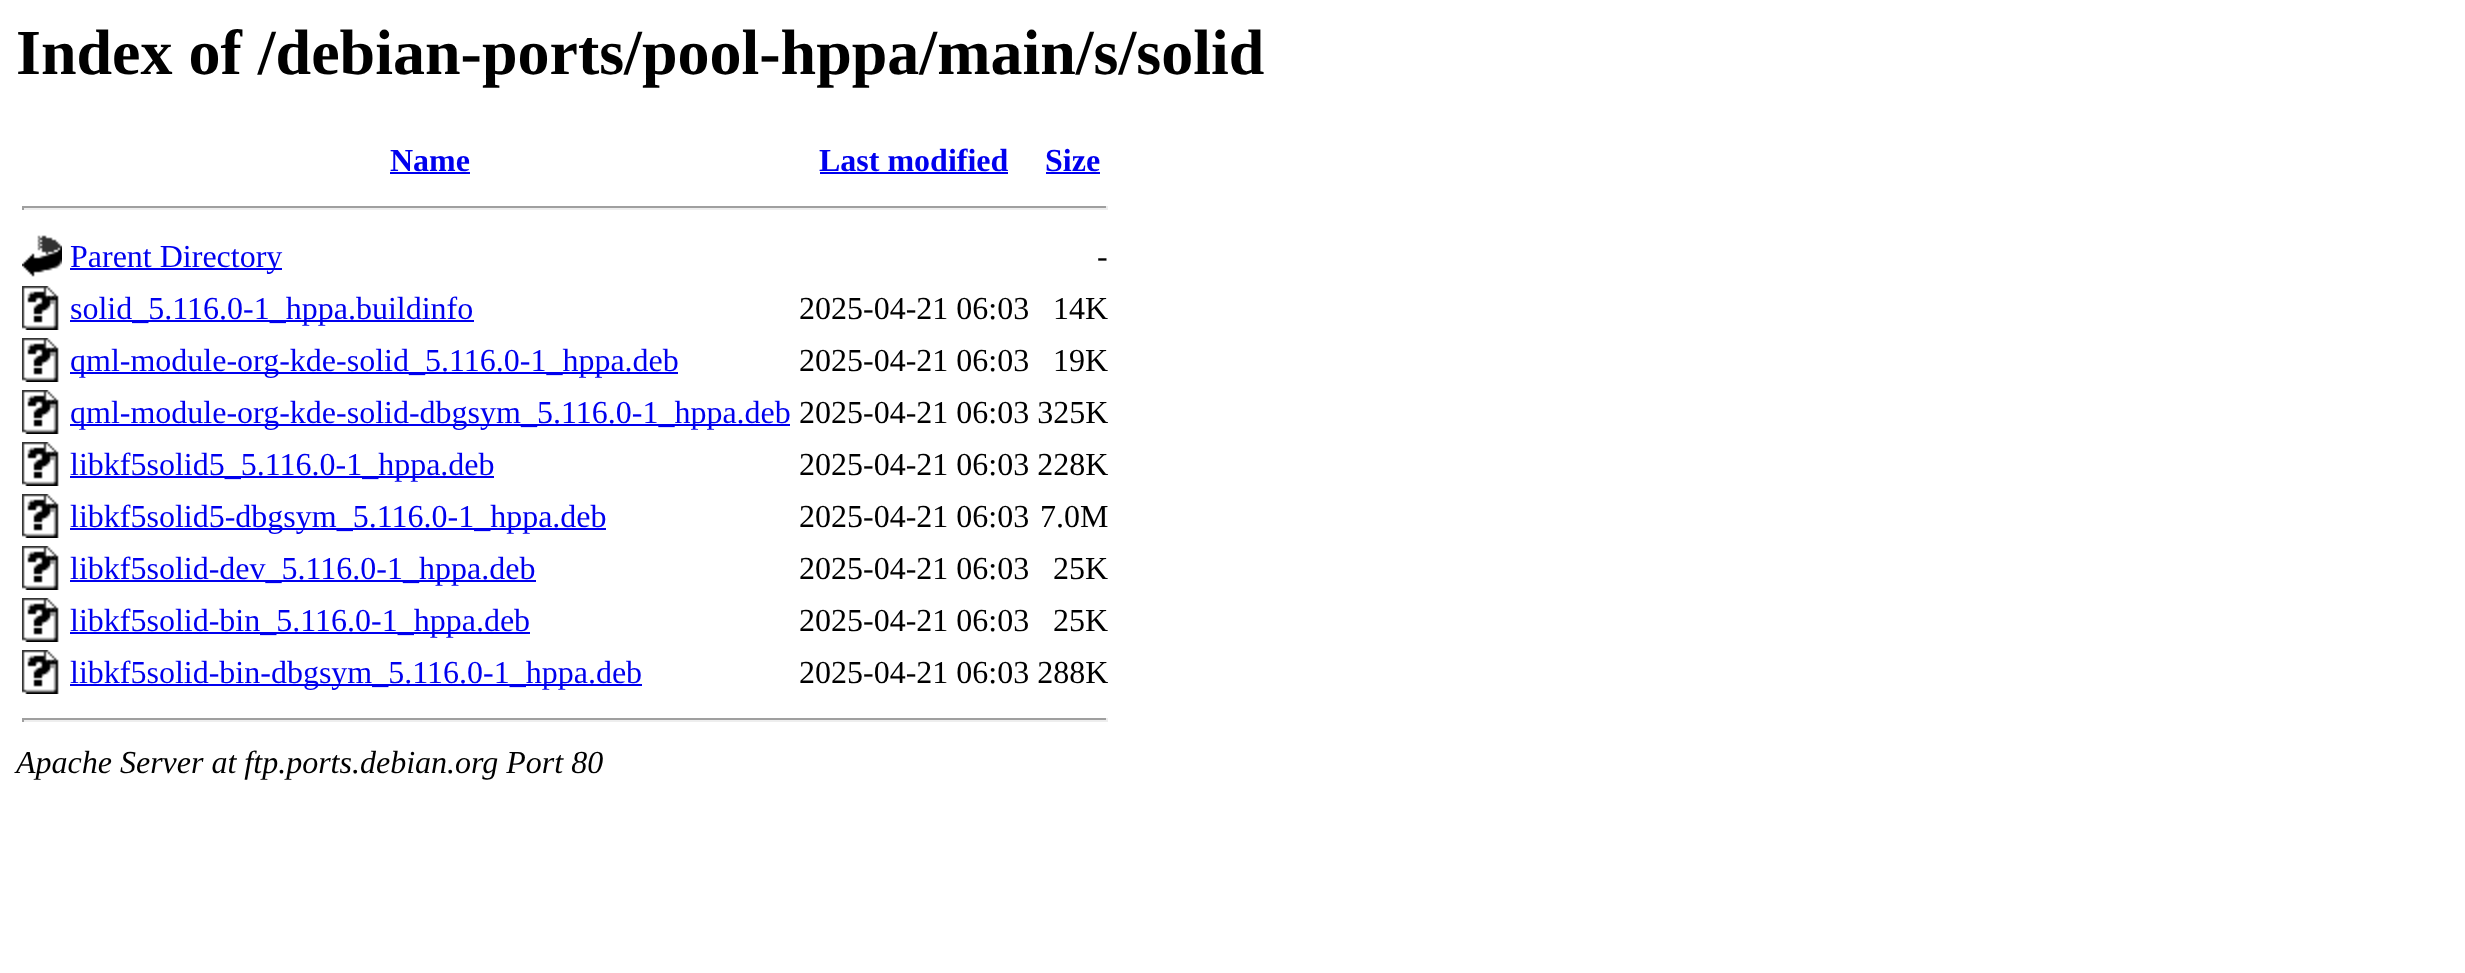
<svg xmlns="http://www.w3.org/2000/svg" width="2465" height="973">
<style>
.a{font:bold 64px Liberation Serif;fill:#000}
.b{font:bold 32px Liberation Serif;fill:#00e}
.c{font:32px Liberation Serif;fill:#00e}
.d{font:32px Liberation Serif;fill:#000}
.e{font:italic 32px Liberation Serif;fill:#000}
</style>
<rect width="100%" height="100%" fill="#fff"/>
<path fill="#00e" d="M390 172h80v2H390z"/>
<path fill="#00e" d="M820 172h188v2H820z"/>
<path fill="#00e" d="M1046 172h54v2H1046z"/>
<path fill="#9f9f9f" d="M22 206h1086v2H22z"/>
<path fill="#eee" d="M1106 206h2v4H1106z"/>
<path fill="#eee" d="M22 208h1086v2H22z"/>
<path fill="#9f9f9f" d="M22 206h2v4H22z"/>
<image href="1.png" x="22" y="235" width="40" height="42"/>
<path fill="#00e" d="M70 268h212v2H70z"/>
<image href="2.png" x="22" y="286" width="37" height="44"/>
<path fill="#00e" d="M70 320h404v2H70z"/>
<image href="2.png" x="22" y="338" width="37" height="44"/>
<path fill="#00e" d="M70 372h608v2H70z"/>
<image href="2.png" x="22" y="390" width="37" height="44"/>
<path fill="#00e" d="M70 424h720v2H70z"/>
<image href="2.png" x="22" y="442" width="37" height="44"/>
<path fill="#00e" d="M70 476h424v2H70z"/>
<image href="2.png" x="22" y="494" width="37" height="44"/>
<path fill="#00e" d="M70 528h536v2H70z"/>
<image href="2.png" x="22" y="546" width="37" height="44"/>
<path fill="#00e" d="M70 580h466v2H70z"/>
<image href="2.png" x="22" y="598" width="37" height="44"/>
<path fill="#00e" d="M70 632h460v2H70z"/>
<image href="2.png" x="22" y="650" width="37" height="44"/>
<path fill="#00e" d="M70 684h572v2H70z"/>
<path fill="#9f9f9f" d="M22 718h1086v2H22z"/>
<path fill="#eee" d="M1106 718h2v4H1106z"/>
<path fill="#eee" d="M22 720h1086v2H22z"/>
<path fill="#9f9f9f" d="M22 718h2v4H22z"/>
<text class="a" x="16" y="74">Index of /debian-ports/pool-hppa/main/s/solid</text>
<text class="b" x="390" y="171">Name</text>
<text class="b" x="819" y="171">Last modified</text>
<text class="b" x="1045" y="171">Size</text>
<text class="c" x="70" y="267">Parent Directory</text>
<text class="d" x="1097" y="267">-</text>
<text class="c" x="70" y="319">solid_5.116.0-1_hppa.buildinfo</text>
<text class="d" x="799" y="319">2025-04-21 06:03</text>
<text class="d" x="1053" y="319">14K</text>
<text class="c" x="70" y="371">qml-module-org-kde-solid_5.116.0-1_hppa.deb</text>
<text class="d" x="799" y="371">2025-04-21 06:03</text>
<text class="d" x="1053" y="371">19K</text>
<text class="c" x="70" y="423">qml-module-org-kde-solid-dbgsym_5.116.0-1_hppa.deb</text>
<text class="d" x="799" y="423">2025-04-21 06:03 325K</text>
<text class="c" x="70" y="475">libkf5solid5_5.116.0-1_hppa.deb</text>
<text class="d" x="799" y="475">2025-04-21 06:03 228K</text>
<text class="c" x="70" y="527">libkf5solid5-dbgsym_5.116.0-1_hppa.deb</text>
<text class="d" x="799" y="527">2025-04-21 06:03</text>
<text class="d" x="1040" y="527">7.0M</text>
<text class="c" x="70" y="579">libkf5solid-dev_5.116.0-1_hppa.deb</text>
<text class="d" x="799" y="579">2025-04-21 06:03</text>
<text class="d" x="1053" y="579">25K</text>
<text class="c" x="70" y="631">libkf5solid-bin_5.116.0-1_hppa.deb</text>
<text class="d" x="799" y="631">2025-04-21 06:03</text>
<text class="d" x="1053" y="631">25K</text>
<text class="c" x="70" y="683">libkf5solid-bin-dbgsym_5.116.0-1_hppa.deb</text>
<text class="d" x="799" y="683">2025-04-21 06:03 288K</text>
<text class="e" x="16" y="773">Apache Server at ftp.ports.debian.org Port 80</text>
</svg>
